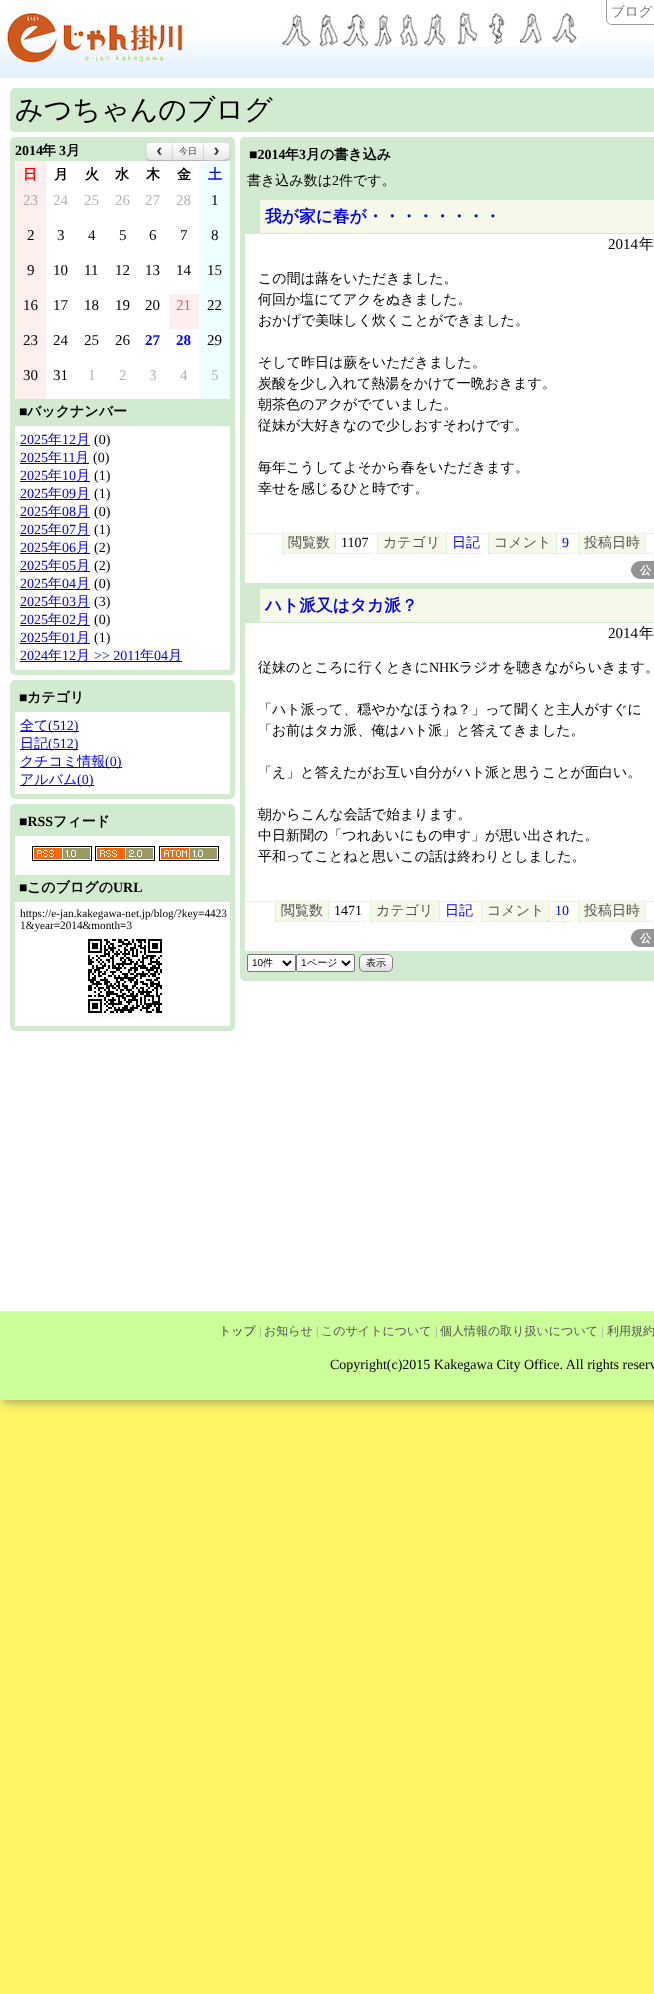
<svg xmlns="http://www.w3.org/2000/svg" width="654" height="1994">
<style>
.a{font:500 13.5px WenQuanYi Zen Hei;fill:#757575}
.b{font:500 28px WenQuanYi Zen Hei;fill:#000}
.c{font:bold 14px Liberation Serif;fill:#000}
.d{font:bold 14px WenQuanYi Zen Hei;fill:#000}
.e{font:bold 18px Liberation Mono;fill:#333}
.f{font:500 9px WenQuanYi Zen Hei;fill:#333}
.g{font:bold 14px WenQuanYi Zen Hei;fill:#f00}
.h{font:bold 14px WenQuanYi Zen Hei;fill:#00f}
.i{font:15px Liberation Serif;fill:#b3a7a7}
.j{font:15px Liberation Serif;fill:#b3b3b3}
.k{font:15px Liberation Serif;fill:#000}
.l{font:15px Liberation Serif;fill:#f55}
.m{font:bold 15px Liberation Serif;fill:#00f}
.n{font:15px Liberation Serif;fill:#a7b3b3}
.o{font:14px Liberation Serif;fill:#00e}
.p{font:500 14px WenQuanYi Zen Hei;fill:#00e}
.q{font:14px Liberation Serif;fill:#000}
.r{font:11.25px Liberation Serif;fill:#000}
.s{font:500 14px WenQuanYi Zen Hei;fill:#000}
.t{font:bold 16.75px WenQuanYi Zen Hei;fill:#00e}
.u{font:500 15px WenQuanYi Zen Hei;fill:#000}
.v{font:500 14px WenQuanYi Zen Hei;fill:#555}
.w{font:bold 11.25px WenQuanYi Zen Hei;fill:#fff}
.x{font:10px Liberation Sans;fill:#000}
.y{font:500 10px WenQuanYi Zen Hei;fill:#000}
.z{font:500 12px WenQuanYi Zen Hei;fill:#333}
.a1{font:12px Liberation Serif;fill:#999}
.b1{font:500 12px WenQuanYi Zen Hei;fill:#555}
</style>
<defs>
<linearGradient id="g1" gradientUnits="userSpaceOnUse" x1="500" y1="0" x2="500" y2="70"><stop offset="0.5" stop-color="#fff"/><stop offset="1" stop-color="#e4f0fd"/></linearGradient>
<clipPath id="clip1"><path d="M150 142h23v19h-23c-2 0-4-2-4-4v-11c0-2 2-4 4-4z"/></clipPath>
<linearGradient id="g2" gradientUnits="userSpaceOnUse" x1="160" y1="143" x2="160" y2="160"><stop offset="0" stop-color="#fff"/><stop offset="1" stop-color="#e6e6e6"/></linearGradient>
<linearGradient id="g3" gradientUnits="userSpaceOnUse" x1="188" y1="143" x2="188" y2="160"><stop offset="0" stop-color="#fff"/><stop offset="1" stop-color="#e6e6e6"/></linearGradient>
<clipPath id="clip2"><path d="M203 142h23c2 0 4 2 4 4v11c0 2-2 4-4 4h-23z"/></clipPath>
<linearGradient id="g4" gradientUnits="userSpaceOnUse" x1="217" y1="143" x2="217" y2="160"><stop offset="0" stop-color="#fff"/><stop offset="1" stop-color="#e6e6e6"/></linearGradient>
</defs>
<rect width="100%" height="100%" fill="#fff464"/>
<path fill="#64646480" filter="blur(5px)" d="M3 3h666v1400H3z"/>
<path fill="#fff" d="M0 78h654v1233H0z"/>
<path fill="url(#g1)" d="M0 0h654v70H0z"/>
<image href="1.png" x="7" y="13" width="176" height="50"/>
<image href="2.png" x="280" y="6" width="300" height="40"/>
<path fill="#999" fill-rule="evenodd" d="M606 0h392v19c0 3-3 6-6 6h-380c-3 0-6-3-6-6zm1 0h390v19c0 3-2 5-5 5h-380c-3 0-5-2-5-5z"/>
<path fill="#e4f0fd" d="M0 70h654v8H0z"/>
<rect fill="#d1ead0" x="10" y="88" width="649" height="44" rx="5"/>
<rect fill="#d1ead0" x="10" y="137" width="225" height="538" rx="5"/>
<path fill="#fff" d="M46 161h153v238H46z"/>
<rect fill="#0000000d" filter="blur(1px)" x="146" y="143" width="27" height="19" rx="4"/>
<path fill="#f5f5f5" d="M150 142h23v19h-23c-2 0-4-2-4-4v-11c0-2 2-4 4-4z"/>
<g clip-path="url(#clip1)">
<path fill="url(#g2)" d="M146 143h26v17H146z"/>
</g>
<path fill="#0000001a" d="M150 142c-1 0-2 .5-3 1l1 1c.5-.5 1-1 2-1h22l1-1z"/>
<path fill="#00000040" d="M173 161l-1-1h-22c-1 0-1.5-.5-2-1l-1 1c1 .5 2 1 3 1z"/>
<path fill="#0000001a" d="M146 146v11c0 1 .5 2 1 3l1-1c-2-1.5-1-5.5-1-7.5c0-2-1-6 1-7.5l-1-1c-.5 1-1 2-1 3z"/>
<path fill="#0000000d" filter="blur(1px)" d="M172 143h32v19H172z"/>
<path fill="#f5f5f5" d="M172 142h31v19H172z"/>
<path fill="url(#g3)" d="M172 143h31v17H172z"/>
<path fill="#ddd" d="M172 142h32l-1 1h-30z"/>
<path fill="#00000040" d="M204 161h-32l1-1h30z"/>
<path fill="#0000001a" d="M172 161v-19l1 1v17z"/>
<rect fill="#0000000d" filter="blur(1px)" x="203" y="143" width="27" height="19" rx="4"/>
<path fill="#f5f5f5" d="M203 142h23c2 0 4 2 4 4v11c0 2-2 4-4 4h-23z"/>
<g clip-path="url(#clip2)">
<path fill="url(#g4)" d="M203 143h27v17H203z"/>
</g>
<path fill="#0000001a" d="M203 142l1 1c3 0 22-1 24 1l1-1c-1-.5-3-1-7-1z"/>
<path fill="#0000001a" d="M230 156.5c0 1.5-.5 2.5-1 3.5l-1-1l1-2v-11l-1-2l1-1c2 2 1 11 1 13.5z"/>
<path fill="#00000040" d="M222 161c4 0 6-.5 7-1l-1-1c-2 2-21 1-24 1l-1 1z"/>
<path fill="#0000001a" d="M203 142v19l1-1v-17z"/>
<path fill="#fee" d="M15 161h31v238H15z"/>
<path fill="#eff" d="M199 161h31v238H199z"/>
<path fill="#fee" d="M169 294h30v35H169z"/>
<path fill="#fff" d="M15 426h215v244H15z"/>
<path fill="#00e" d="M20 445h70v1H20z"/>
<path fill="#00e" d="M20 463h69v1H20z"/>
<path fill="#00e" d="M20 481h70v1H20z"/>
<path fill="#00e" d="M20 499h70v1H20z"/>
<path fill="#00e" d="M20 517h70v1H20z"/>
<path fill="#00e" d="M20 535h70v1H20z"/>
<path fill="#00e" d="M20 553h70v1H20z"/>
<path fill="#00e" d="M20 571h70v1H20z"/>
<path fill="#00e" d="M20 589h70v1H20z"/>
<path fill="#00e" d="M20 607h70v1H20z"/>
<path fill="#00e" d="M20 625h70v1H20z"/>
<path fill="#00e" d="M20 643h70v1H20z"/>
<path fill="#00e" d="M20 661h162v1H20z"/>
<rect fill="#d1ead0" x="10" y="680" width="225" height="119" rx="5"/>
<path fill="#fff" d="M15 712h215v82H15z"/>
<path fill="#00e" d="M20 731h59v1H20z"/>
<path fill="#00e" d="M20 749h58v1H20z"/>
<path fill="#00e" d="M20 767h102v1H20z"/>
<path fill="#00e" d="M20 785h74v1H20z"/>
<rect fill="#d1ead0" x="10" y="804" width="225" height="227" rx="5"/>
<path fill="#fff" d="M15 836h215v39H15z"/>
<image href="3.png" x="32" y="846" width="60" height="15"/>
<image href="4.png" x="95" y="846" width="60" height="15"/>
<image href="5.png" x="159" y="846" width="60" height="15"/>
<path fill="#fff" d="M15 902h215v124H15z"/>
<image href="6.png" x="88" y="939" width="80" height="80"/>
<rect fill="#d1ead0" x="240" y="137" width="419" height="844" rx="5"/>
<path fill="#fff" d="M245 234h409v349H245z"/>
<path fill="#f6f9e9" d="M260 200h394v33H260z"/>
<path fill="none" stroke="#d1ead0" stroke-dasharray="1 1" d="M245 533.5h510"/>
<path fill="#f6f9e9" d="M282 532h54v22H282z"/>
<path fill="none" stroke="#d1ead0" stroke-dasharray="1 1" d="M335.5 532v22m-53.5-.5h54m-53.5-21.5v22"/>
<path fill="none" stroke="#d1ead0" stroke-dasharray="1 1" d="M336 553.5h38"/>
<path fill="#f6f9e9" d="M377 532h70v22H377z"/>
<path fill="none" stroke="#d1ead0" stroke-dasharray="1 1" d="M446.5 532v22"/>
<path fill="none" stroke="#d1ead0" stroke-dasharray="1 1" d="M377 553.5h70"/>
<path fill="none" stroke="#d1ead0" stroke-dasharray="1 1" d="M377.5 532v22"/>
<path fill="none" stroke="#d1ead0" stroke-dasharray="1 1" d="M447 553.5h38"/>
<path fill="#f6f9e9" d="M488 532h69v22H488z"/>
<path fill="none" stroke="#d1ead0" stroke-dasharray="1 1" d="M556.5 532v22"/>
<path fill="none" stroke="#d1ead0" stroke-dasharray="1 1" d="M488 553.5h69"/>
<path fill="none" stroke="#d1ead0" stroke-dasharray="1 1" d="M488.5 532v22"/>
<path fill="none" stroke="#d1ead0" stroke-dasharray="1 1" d="M557 553.5h17"/>
<path fill="#f6f9e9" d="M578 532h68v22H578z"/>
<path fill="none" stroke="#d1ead0" stroke-dasharray="1 1" d="M645.5 532v22"/>
<path fill="none" stroke="#d1ead0" stroke-dasharray="1 1" d="M578 553.5h68"/>
<path fill="none" stroke="#d1ead0" stroke-dasharray="1 1" d="M578.5 532v22"/>
<path fill="none" stroke="#d1ead0" stroke-dasharray="1 1" d="M646 553.5h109"/>
<path fill="#949495" stroke="#949495" d="M640 561.5h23.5v17h-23.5c-4.5 0-8.5-4-8.5-8.5c0-4.5 4-8.5 8.5-8.5z"/>
<path fill="#fff" d="M245 623h409v328H245z"/>
<path fill="#f6f9e9" d="M260 589h394v33H260z"/>
<path fill="none" stroke="#d1ead0" stroke-dasharray="1 1" d="M245 901.5h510"/>
<path fill="#f6f9e9" d="M275 900h54v22H275z"/>
<path fill="none" stroke="#d1ead0" stroke-dasharray="1 1" d="M328.5 900v22m-53.5-.5h54m-53.5-21.5v22"/>
<path fill="none" stroke="#d1ead0" stroke-dasharray="1 1" d="M329 921.5h38"/>
<path fill="#f6f9e9" d="M370 900h70v22H370z"/>
<path fill="none" stroke="#d1ead0" stroke-dasharray="1 1" d="M439.5 900v22"/>
<path fill="none" stroke="#d1ead0" stroke-dasharray="1 1" d="M370 921.5h70"/>
<path fill="none" stroke="#d1ead0" stroke-dasharray="1 1" d="M370.5 900v22"/>
<path fill="none" stroke="#d1ead0" stroke-dasharray="1 1" d="M440 921.5h38"/>
<path fill="#f6f9e9" d="M481 900h69v22H481z"/>
<path fill="none" stroke="#d1ead0" stroke-dasharray="1 1" d="M549.5 900v22"/>
<path fill="none" stroke="#d1ead0" stroke-dasharray="1 1" d="M481 921.5h69"/>
<path fill="none" stroke="#d1ead0" stroke-dasharray="1 1" d="M481.5 900v22"/>
<path fill="none" stroke="#d1ead0" stroke-dasharray="1 1" d="M550 921.5h24"/>
<path fill="#f6f9e9" d="M578 900h68v22H578z"/>
<path fill="none" stroke="#d1ead0" stroke-dasharray="1 1" d="M645.5 900v22"/>
<path fill="none" stroke="#d1ead0" stroke-dasharray="1 1" d="M578 921.5h68"/>
<path fill="none" stroke="#d1ead0" stroke-dasharray="1 1" d="M578.5 900v22"/>
<path fill="none" stroke="#d1ead0" stroke-dasharray="1 1" d="M646 921.5h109"/>
<path fill="#949495" stroke="#949495" d="M640 929.5h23.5v17h-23.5c-4.5 0-8.5-4-8.5-8.5c0-4.5 4-8.5 8.5-8.5z"/>
<rect fill="#fff" stroke="#767676" x="247.5" y="954.5" width="48" height="17" rx="1.5"/>
<path fill="none" stroke="#000" stroke-width="2" d="M283 961l4 4l4-4"/>
<rect fill="#fff" stroke="#767676" x="296.5" y="954.5" width="58" height="17" rx="1.5"/>
<path fill="none" stroke="#000" stroke-width="2" d="M342 961l4 4l4-4"/>
<image href="7.png" x="359" y="954" width="34" height="18"/>
<rect fill="none" stroke="#808080" x="359.5" y="954.5" width="33" height="17" rx="4.5"/>
<path fill="#ccff9a" d="M0 1311h654v89H0z"/>
<text class="a" x="611" y="16">ブログ</text>
<text class="b" x="15" y="119">みつちゃんのブログ</text>
<text class="c" x="15" y="155">2014</text>
<text class="d" x="42" y="155">年</text>
<text class="c" x="59" y="155">3</text>
<text class="d" x="66" y="155">月</text>
<text class="e" x="154" y="156">‹</text>
<text class="f" x="179" y="154">今日</text>
<text class="e" x="211" y="156">›</text>
<text class="g" x="23" y="179">日</text>
<text class="d" x="54" y="179">月</text>
<text class="d" x="85" y="179">火</text>
<text class="d" x="115" y="179">水</text>
<text class="d" x="146" y="179">木</text>
<text class="d" x="177" y="179">金</text>
<text class="h" x="208" y="179">土</text>
<text class="i" x="23" y="205">23</text>
<text class="j" x="53" y="205">24</text>
<text class="j" x="84" y="205">25</text>
<text class="j" x="115" y="205">26</text>
<text class="j" x="145" y="205">27</text>
<text class="j" x="176" y="205">28</text>
<text class="k" x="211" y="205">1</text>
<text class="k" x="27" y="240">2</text>
<text class="k" x="57" y="240">3</text>
<text class="k" x="88" y="240">4</text>
<text class="k" x="119" y="240">5</text>
<text class="k" x="149" y="240">6</text>
<text class="k" x="180" y="240">7</text>
<text class="k" x="211" y="240">8</text>
<text class="k" x="27" y="275">9</text>
<text class="k" x="53" y="275">10</text>
<text class="k" x="84" y="275">11</text>
<text class="k" x="115" y="275">12</text>
<text class="k" x="145" y="275">13</text>
<text class="k" x="176" y="275">14</text>
<text class="k" x="207" y="275">15</text>
<text class="k" x="23" y="310">16</text>
<text class="k" x="53" y="310">17</text>
<text class="k" x="84" y="310">18</text>
<text class="k" x="115" y="310">19</text>
<text class="k" x="145" y="310">20</text>
<text class="l" x="176" y="310">21</text>
<text class="k" x="207" y="310">22</text>
<text class="k" x="23" y="345">23</text>
<text class="k" x="53" y="345">24</text>
<text class="k" x="84" y="345">25</text>
<text class="k" x="115" y="345">26</text>
<text class="m" x="145" y="345">27</text>
<text class="m" x="176" y="345">28</text>
<text class="k" x="207" y="345">29</text>
<text class="k" x="23" y="380">30</text>
<text class="k" x="53" y="380">31</text>
<text class="j" x="88" y="380">1</text>
<text class="j" x="119" y="380">2</text>
<text class="j" x="149" y="380">3</text>
<text class="j" x="180" y="380">4</text>
<text class="n" x="211" y="380">5</text>
<text class="c" x="19" y="416">■</text>
<text class="d" x="27" y="416">バックナンバー</text>
<text class="o" x="20" y="444">2025</text>
<text class="p" x="48" y="444">年</text>
<text class="o" x="62" y="444">12</text>
<text class="p" x="76" y="444">月</text>
<text class="q" x="94" y="444">(0)</text>
<text class="o" x="20" y="462">2025</text>
<text class="p" x="48" y="462">年</text>
<text class="o" x="62" y="462">11</text>
<text class="p" x="75" y="462">月</text>
<text class="q" x="93" y="462">(0)</text>
<text class="o" x="20" y="480">2025</text>
<text class="p" x="48" y="480">年</text>
<text class="o" x="62" y="480">10</text>
<text class="p" x="76" y="480">月</text>
<text class="q" x="94" y="480">(1)</text>
<text class="o" x="20" y="498">2025</text>
<text class="p" x="48" y="498">年</text>
<text class="o" x="62" y="498">09</text>
<text class="p" x="76" y="498">月</text>
<text class="q" x="94" y="498">(1)</text>
<text class="o" x="20" y="516">2025</text>
<text class="p" x="48" y="516">年</text>
<text class="o" x="62" y="516">08</text>
<text class="p" x="76" y="516">月</text>
<text class="q" x="94" y="516">(0)</text>
<text class="o" x="20" y="534">2025</text>
<text class="p" x="48" y="534">年</text>
<text class="o" x="62" y="534">07</text>
<text class="p" x="76" y="534">月</text>
<text class="q" x="94" y="534">(1)</text>
<text class="o" x="20" y="552">2025</text>
<text class="p" x="48" y="552">年</text>
<text class="o" x="62" y="552">06</text>
<text class="p" x="76" y="552">月</text>
<text class="q" x="94" y="552">(2)</text>
<text class="o" x="20" y="570">2025</text>
<text class="p" x="48" y="570">年</text>
<text class="o" x="62" y="570">05</text>
<text class="p" x="76" y="570">月</text>
<text class="q" x="94" y="570">(2)</text>
<text class="o" x="20" y="588">2025</text>
<text class="p" x="48" y="588">年</text>
<text class="o" x="62" y="588">04</text>
<text class="p" x="76" y="588">月</text>
<text class="q" x="94" y="588">(0)</text>
<text class="o" x="20" y="606">2025</text>
<text class="p" x="48" y="606">年</text>
<text class="o" x="62" y="606">03</text>
<text class="p" x="76" y="606">月</text>
<text class="q" x="94" y="606">(3)</text>
<text class="o" x="20" y="624">2025</text>
<text class="p" x="48" y="624">年</text>
<text class="o" x="62" y="624">02</text>
<text class="p" x="76" y="624">月</text>
<text class="q" x="94" y="624">(0)</text>
<text class="o" x="20" y="642">2025</text>
<text class="p" x="48" y="642">年</text>
<text class="o" x="62" y="642">01</text>
<text class="p" x="76" y="642">月</text>
<text class="q" x="94" y="642">(1)</text>
<text class="o" x="20" y="660">2024</text>
<text class="p" x="48" y="660">年</text>
<text class="o" x="62" y="660">12</text>
<text class="p" x="76" y="660">月</text>
<text class="o" x="94" y="660">&gt;&gt; 2011</text>
<text class="p" x="140" y="660">年</text>
<text class="o" x="154" y="660">04</text>
<text class="p" x="168" y="660">月</text>
<text class="c" x="19" y="702">■</text>
<text class="d" x="27" y="702">カテゴリ</text>
<text class="p" x="20" y="730">全て</text>
<text class="o" x="48" y="730">(512)</text>
<text class="p" x="20" y="748">日記</text>
<text class="o" x="48" y="748">(512)</text>
<text class="p" x="20" y="766">クチコミ情報</text>
<text class="o" x="105" y="766">(0)</text>
<text class="p" x="20" y="784">アルバム</text>
<text class="o" x="77" y="784">(0)</text>
<text class="c" x="19" y="826">■RSS</text>
<text class="d" x="53" y="826">フィード</text>
<text class="c" x="19" y="892">■</text>
<text class="d" x="27" y="892">このブログの</text>
<text class="c" x="113" y="892">URL</text>
<text class="r" x="20" y="917">https://e-jan.kakegawa-net.jp/blog/?key=4423</text>
<text class="r" x="20" y="929">1&amp;year=2014&amp;month=3</text>
<text class="c" x="249" y="159">■2014</text>
<text class="d" x="285" y="159">年</text>
<text class="c" x="299" y="159">3</text>
<text class="d" x="306" y="159">月の書き込み</text>
<text class="s" x="247" y="185">書き込み数は</text>
<text class="q" x="332" y="185">2</text>
<text class="s" x="339" y="185">件です。</text>
<text class="t" x="265" y="222">我が家に春が・・・・・・・・</text>
<text class="k" x="608" y="249">2014</text>
<text class="u" x="639" y="249">年</text>
<text class="s" x="258" y="283">この間は蕗をいただきました。</text>
<text class="s" x="258" y="304">何回か塩にてアクをぬきました。</text>
<text class="s" x="258" y="325">おかげで美味しく炊くことができました。</text>
<text class="s" x="258" y="367">そして昨日は蕨をいただきました。</text>
<text class="s" x="258" y="388">炭酸を少し入れて熱湯をかけて一晩おきます。</text>
<text class="s" x="258" y="409">朝茶色のアクがでていました。</text>
<text class="s" x="258" y="430">従妹が大好きなので少しおすそわけです。</text>
<text class="s" x="258" y="472">毎年こうしてよそから春をいただきます。</text>
<text class="s" x="258" y="493">幸せを感じるひと時です。</text>
<text class="v" x="288" y="547">閲覧数</text>
<text class="q" x="341" y="547">1107</text>
<text class="v" x="383" y="547">カテゴリ</text>
<text class="p" x="452" y="547">日記</text>
<text class="v" x="494" y="547">コメント</text>
<text class="o" x="562" y="547">9</text>
<text class="v" x="584" y="547">投稿日時</text>
<text class="w" x="640" y="574">公</text>
<text class="t" x="265" y="611">ハト派又はタカ派？</text>
<text class="k" x="608" y="638">2014</text>
<text class="u" x="639" y="638">年</text>
<text class="s" x="258" y="672">従妹のところに行くときに</text>
<text class="q" x="429" y="672">NHK</text>
<text class="s" x="459" y="672">ラジオを聴きながらいきます。</text>
<text class="s" x="258" y="714">「ハト派って、穏やかなほうね？」って聞くと主人がすぐに</text>
<text class="s" x="258" y="735">「お前はタカ派、俺はハト派」と答えてきました。</text>
<text class="s" x="258" y="777">「え」と答えたがお互い自分がハト派と思うことが面白い。</text>
<text class="s" x="258" y="819">朝からこんな会話で始まります。</text>
<text class="s" x="258" y="840">中日新聞の「つれあいにもの申す」が思い出された。</text>
<text class="s" x="258" y="861">平和ってことねと思いこの話は終わりとしました。</text>
<text class="v" x="281" y="915">閲覧数</text>
<text class="q" x="334" y="915">1471</text>
<text class="v" x="376" y="915">カテゴリ</text>
<text class="p" x="445" y="915">日記</text>
<text class="v" x="487" y="915">コメント</text>
<text class="o" x="555" y="915">10</text>
<text class="v" x="584" y="915">投稿日時</text>
<text class="w" x="640" y="942">公</text>
<text class="x" x="252" y="966">10</text>
<text class="y" x="263" y="966">件</text>
<text class="x" x="301" y="966">1</text>
<text class="y" x="307" y="966">ページ</text>
<text class="y" x="366" y="966">表示</text>
<text class="z" x="219" y="1335">トップ</text>
<text class="a1" x="259" y="1335">|</text>
<text class="b1" x="264" y="1335">お知らせ</text>
<text class="a1" x="316" y="1335">|</text>
<text class="b1" x="321" y="1335">このサイトについて</text>
<text class="a1" x="435" y="1335">|</text>
<text class="b1" x="440" y="1335">個人情報の取り扱いについて</text>
<text class="a1" x="601" y="1335">|</text>
<text class="b1" x="607" y="1335">利用規約</text>
<text class="q" x="330" y="1369">Copyright(c)2015 Kakegawa City Office. All rights reserv</text>
</svg>
